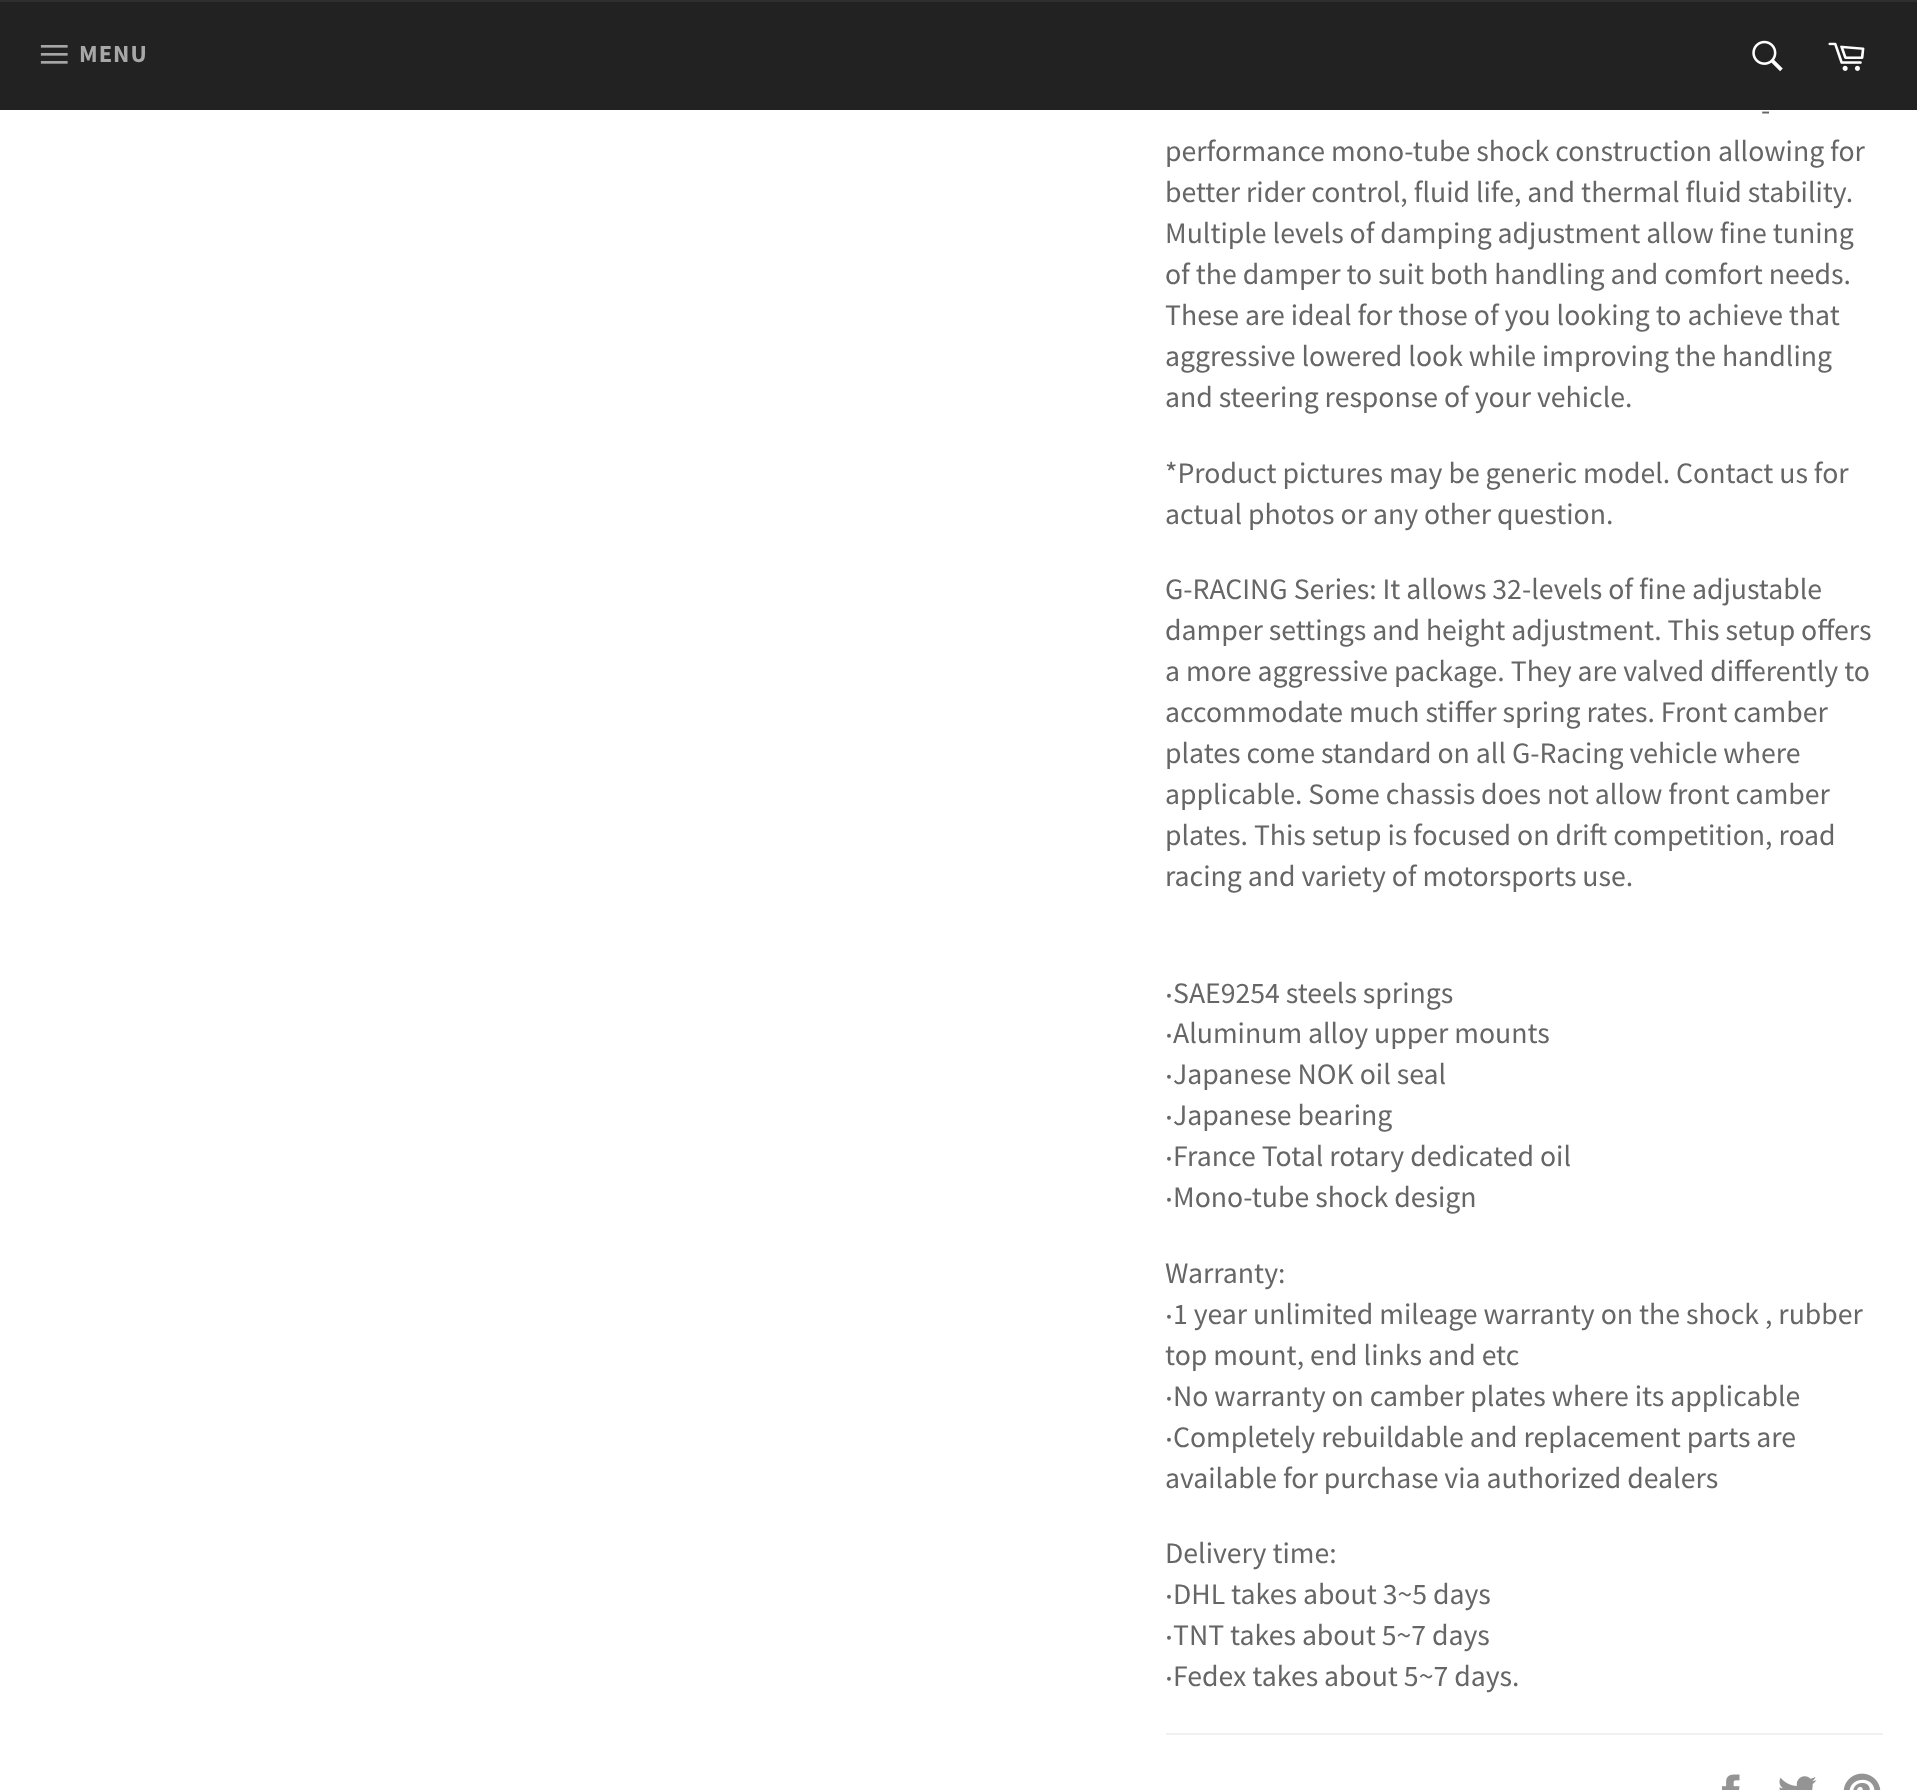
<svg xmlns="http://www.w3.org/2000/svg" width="1917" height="1790">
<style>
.a{font:bold 24.5px Source Sans Pro;letter-spacing:1px;fill:#a7a7a7}
.b{font:29.75px Source Sans Pro;fill:#666}
.c{font:29.75px Noto Sans;fill:#666}
</style>
<rect width="100%" height="100%" fill="#fff"/>
<path fill="#222" d="M0 2h1917v108H0z"/>
<path fill="#2f2f2f" d="M0 0h1917v2H0z"/>
<image href="1.png" x="40" y="45" width="28" height="19"/>
<image href="2.png" x="1752" y="40" width="31" height="32"/>
<image href="3.png" x="1828" y="42" width="37" height="29"/>
<path fill="#f0f0f0" d="M1166 1733h717v2H1166z"/>
<image href="4.png" x="1722" y="1774" width="18" height="16"/>
<image href="5.png" x="1779" y="1776" width="38" height="14"/>
<image href="6.png" x="1843" y="1773" width="38" height="17"/>
<text class="a" x="79" y="62">MENU</text>
<text class="b" x="1761" y="120">-</text>
<text class="b" x="1165" y="161">performance mono-tube shock construction allowing for</text>
<text class="b" x="1165" y="202">better rider control, fluid life, and thermal fluid stability.</text>
<text class="b" x="1165" y="243">Multiple levels of damping adjustment allow fine tuning</text>
<text class="b" x="1165" y="284">of the damper to suit both handling and comfort needs.</text>
<text class="b" x="1165" y="325">These are ideal for those of you looking to achieve that</text>
<text class="b" x="1165" y="366">aggressive lowered look while improving the handling</text>
<text class="b" x="1165" y="407">and steering response of your vehicle.</text>
<text class="b" x="1165" y="483">*Product pictures may be generic model. Contact us for</text>
<text class="b" x="1165" y="524">actual photos or any other question.</text>
<text class="b" x="1165" y="599">G-RACING Series: It allows 32-levels of fine adjustable</text>
<text class="b" x="1165" y="640">damper settings and height adjustment. This setup offers</text>
<text class="b" x="1165" y="681">a more aggressive package. They are valved differently to</text>
<text class="b" x="1165" y="722">accommodate much stiffer spring rates. Front camber</text>
<text class="b" x="1165" y="763">plates come standard on all G-Racing vehicle where</text>
<text class="b" x="1165" y="804">applicable. Some chassis does not allow front camber</text>
<text class="b" x="1165" y="845">plates. This setup is focused on drift competition, road</text>
<text class="b" x="1165" y="886">racing and variety of motorsports use.</text>
<text class="c" x="1165" y="1003">‧</text>
<text class="b" x="1173" y="1003">SAE9254 steels springs</text>
<text class="c" x="1165" y="1043">‧</text>
<text class="b" x="1173" y="1043">Aluminum alloy upper mounts</text>
<text class="c" x="1165" y="1084">‧</text>
<text class="b" x="1173" y="1084">Japanese NOK oil seal</text>
<text class="c" x="1165" y="1125">‧</text>
<text class="b" x="1173" y="1125">Japanese bearing</text>
<text class="c" x="1165" y="1166">‧</text>
<text class="b" x="1173" y="1166">France Total rotary dedicated oil</text>
<text class="c" x="1165" y="1207">‧</text>
<text class="b" x="1173" y="1207">Mono-tube shock design</text>
<text class="b" x="1165" y="1283">Warranty:</text>
<text class="c" x="1165" y="1324">‧</text>
<text class="b" x="1173" y="1324">1 year unlimited mileage warranty on the shock , rubber</text>
<text class="b" x="1165" y="1365">top mount, end links and etc</text>
<text class="c" x="1165" y="1406">‧</text>
<text class="b" x="1173" y="1406">No warranty on camber plates where its applicable</text>
<text class="c" x="1165" y="1447">‧</text>
<text class="b" x="1173" y="1447">Completely rebuildable and replacement parts are</text>
<text class="b" x="1165" y="1488">available for purchase via authorized dealers</text>
<text class="b" x="1165" y="1563">Delivery time:</text>
<text class="c" x="1165" y="1604">‧</text>
<text class="b" x="1173" y="1604">DHL takes about 3~5 days</text>
<text class="c" x="1165" y="1645">‧</text>
<text class="b" x="1173" y="1645">TNT takes about 5~7 days</text>
<text class="c" x="1165" y="1686">‧</text>
<text class="b" x="1173" y="1686">Fedex takes about 5~7 days.</text>
</svg>
